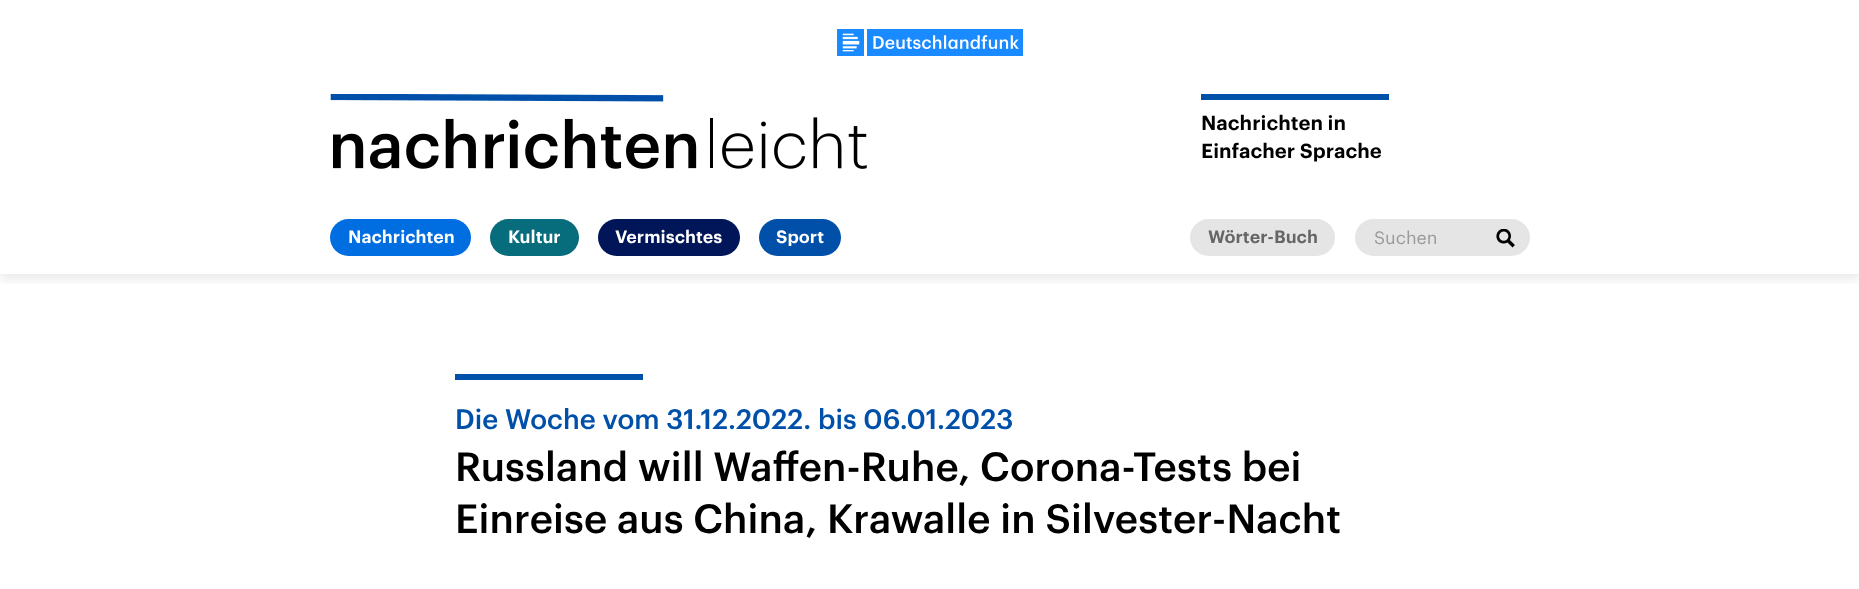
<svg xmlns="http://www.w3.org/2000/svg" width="1859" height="589">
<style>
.a{font:600 20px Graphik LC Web;fill:#000}
.b{font:600 17.5px Graphik LC Web;fill:#fff}
.c{font:600 17.5px Graphik LC Web;fill:#666}
.d{font:17.5px Graphik;fill:#999}
.e{font:500 27.5px Graphik;fill:#0050aa}
.f{font:500 40px Graphik;fill:#000}
</style>
<defs>
<clipPath id="clip1"><path d="M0 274h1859v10H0z"/></clipPath>
</defs>
<rect width="100%" height="100%" fill="#fff"/>
<g clip-path="url(#clip1)">
<path fill="#00000017" filter="blur(6px)" d="M0 5h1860v274H0z"/>
</g>
<image href="1.png" x="837" y="29" width="186" height="27"/>
<image href="2.png" x="330" y="94" width="537" height="75"/>
<path fill="#0050aa" d="M1201 94h188v6H1201z"/>
<rect fill="#006ee1" x="330" y="219" width="141" height="37" rx="18.5"/>
<rect fill="#076c7c" x="490" y="219" width="89" height="37" rx="18.5"/>
<rect fill="#001659" x="598" y="219" width="142" height="37" rx="18.5"/>
<rect fill="#0050aa" x="759" y="219" width="82" height="37" rx="18.5"/>
<rect fill="#e5e5e5" x="1190" y="219" width="145" height="37" rx="18.5"/>
<rect fill="#e5e5e5" x="1355" y="219" width="175" height="37" rx="18.5"/>
<image href="3.png" x="1496" y="229" width="19" height="19"/>
<path fill="#0050aa" d="M455 374h188v6H455z"/>
<text class="a" x="1201" y="130">Nachrichten in</text>
<text class="a" x="1201" y="158">Einfacher Sprache</text>
<text class="b" x="348" y="243">Nachrichten</text>
<text class="b" x="508" y="243">Kultur</text>
<text class="b" x="615" y="243">Vermischtes</text>
<text class="b" x="776" y="243">Sport</text>
<text class="c" x="1208" y="243">Wörter-Buch</text>
<text class="d" x="1374" y="244">Suchen</text>
<text class="e" x="455" y="429">Die Woche vom 31.12.2022. bis 06.01.2023</text>
<text class="f" x="455" y="481">Russland will Waffen-Ruhe, Corona-Tests bei</text>
<text class="f" x="455" y="533">Einreise aus China, Krawalle in Silvester-Nacht</text>
</svg>
